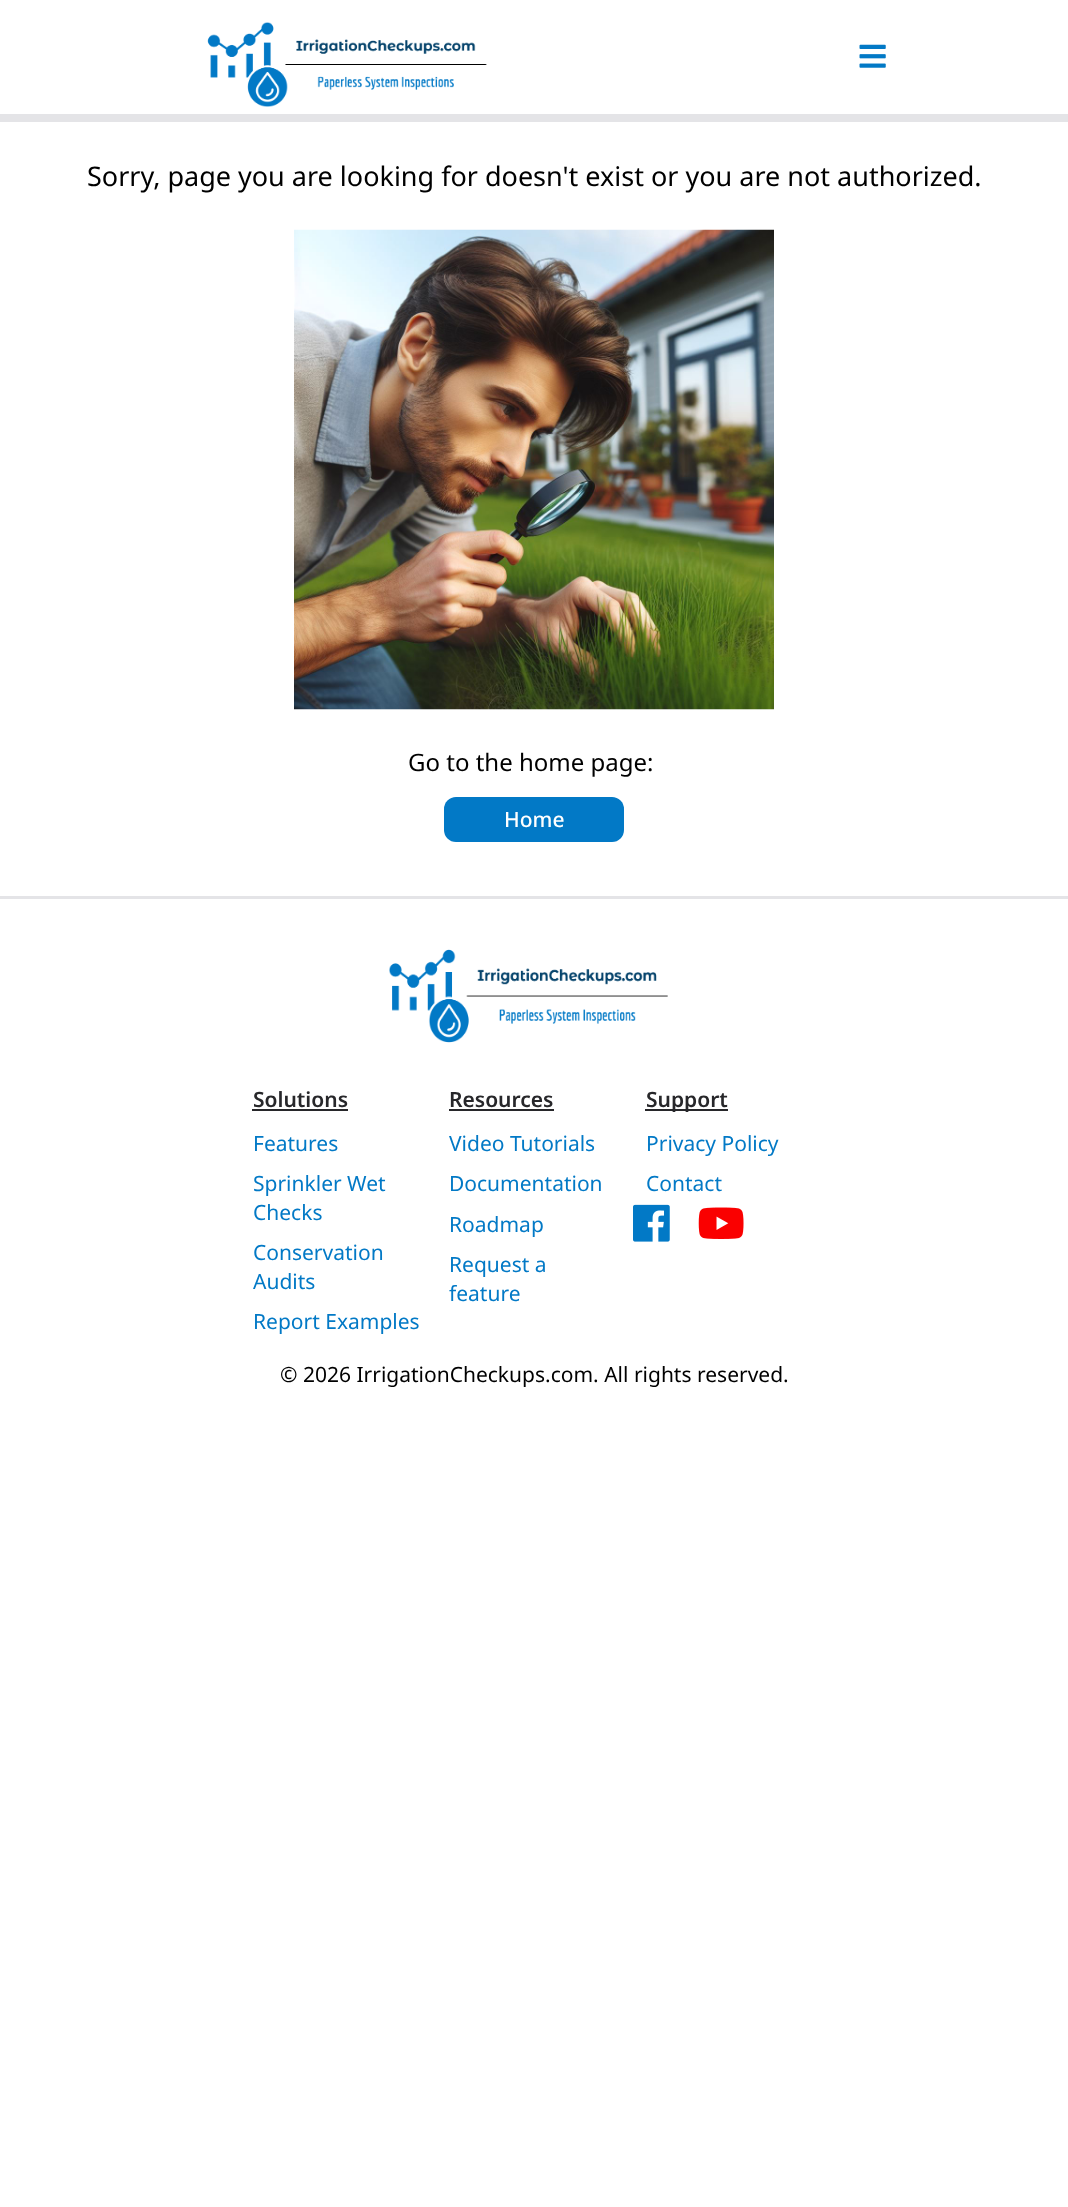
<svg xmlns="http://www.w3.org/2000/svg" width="1068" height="2207">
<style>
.a{font:27px Noto Sans;fill:#000}
.b{font:24px Noto Sans;fill:#000}
.c{font:500 21px Noto Sans;fill:#fff}
.d{font:600 21px Noto Sans;fill:#27272a}
.e{font:21px Noto Sans;fill:#0279c6}
.f{font:21px Noto Sans;fill:#000}
</style>
<rect width="100%" height="100%" fill="#fff"/>
<path fill="#e4e4e7" d="M0 114h1068v8H0z"/>
<image href="1.png" x="207" y="22" width="280" height="85"/>
<image href="2.png" x="859" y="44" width="27" height="24"/>
<image href="3.png" x="294" y="229" width="480" height="481"/>
<rect fill="#0279c6" x="444" y="797" width="180" height="45" rx="12"/>
<path fill="#e4e4e7" d="M0 896h1068v3H0z"/>
<image href="4.png" x="389" y="949" width="279" height="94"/>
<path fill="#27272a" d="M252 1109h96v2H252z"/>
<path fill="#27272a" d="M449 1109h105v2H449z"/>
<path fill="#27272a" d="M645 1109h83v2H645z"/>
<image href="5.png" x="633" y="1204" width="37" height="38"/>
<image href="6.png" x="698" y="1207" width="46" height="32"/>
<text class="a" x="87" y="186">Sorry, page you are looking for doesn't exist or you are not authorized.</text>
<text class="b" x="408" y="771">Go to the home page:</text>
<text class="c" x="504" y="827">Home</text>
<text class="d" x="253" y="1107">Solutions</text>
<text class="e" x="253" y="1151">Features</text>
<text class="e" x="253" y="1191">Sprinkler Wet</text>
<text class="e" x="253" y="1220">Checks</text>
<text class="e" x="253" y="1260">Conservation</text>
<text class="e" x="253" y="1289">Audits</text>
<text class="e" x="253" y="1329">Report Examples</text>
<text class="d" x="449" y="1107">Resources</text>
<text class="e" x="449" y="1151">Video Tutorials</text>
<text class="e" x="449" y="1191">Documentation</text>
<text class="e" x="449" y="1232">Roadmap</text>
<text class="e" x="449" y="1272">Request a</text>
<text class="e" x="449" y="1301">feature</text>
<text class="d" x="646" y="1107">Support</text>
<text class="e" x="646" y="1151">Privacy Policy</text>
<text class="e" x="646" y="1191">Contact</text>
<text class="f" x="280" y="1382">© 2026 IrrigationCheckups.com. All rights reserved.</text>
</svg>
